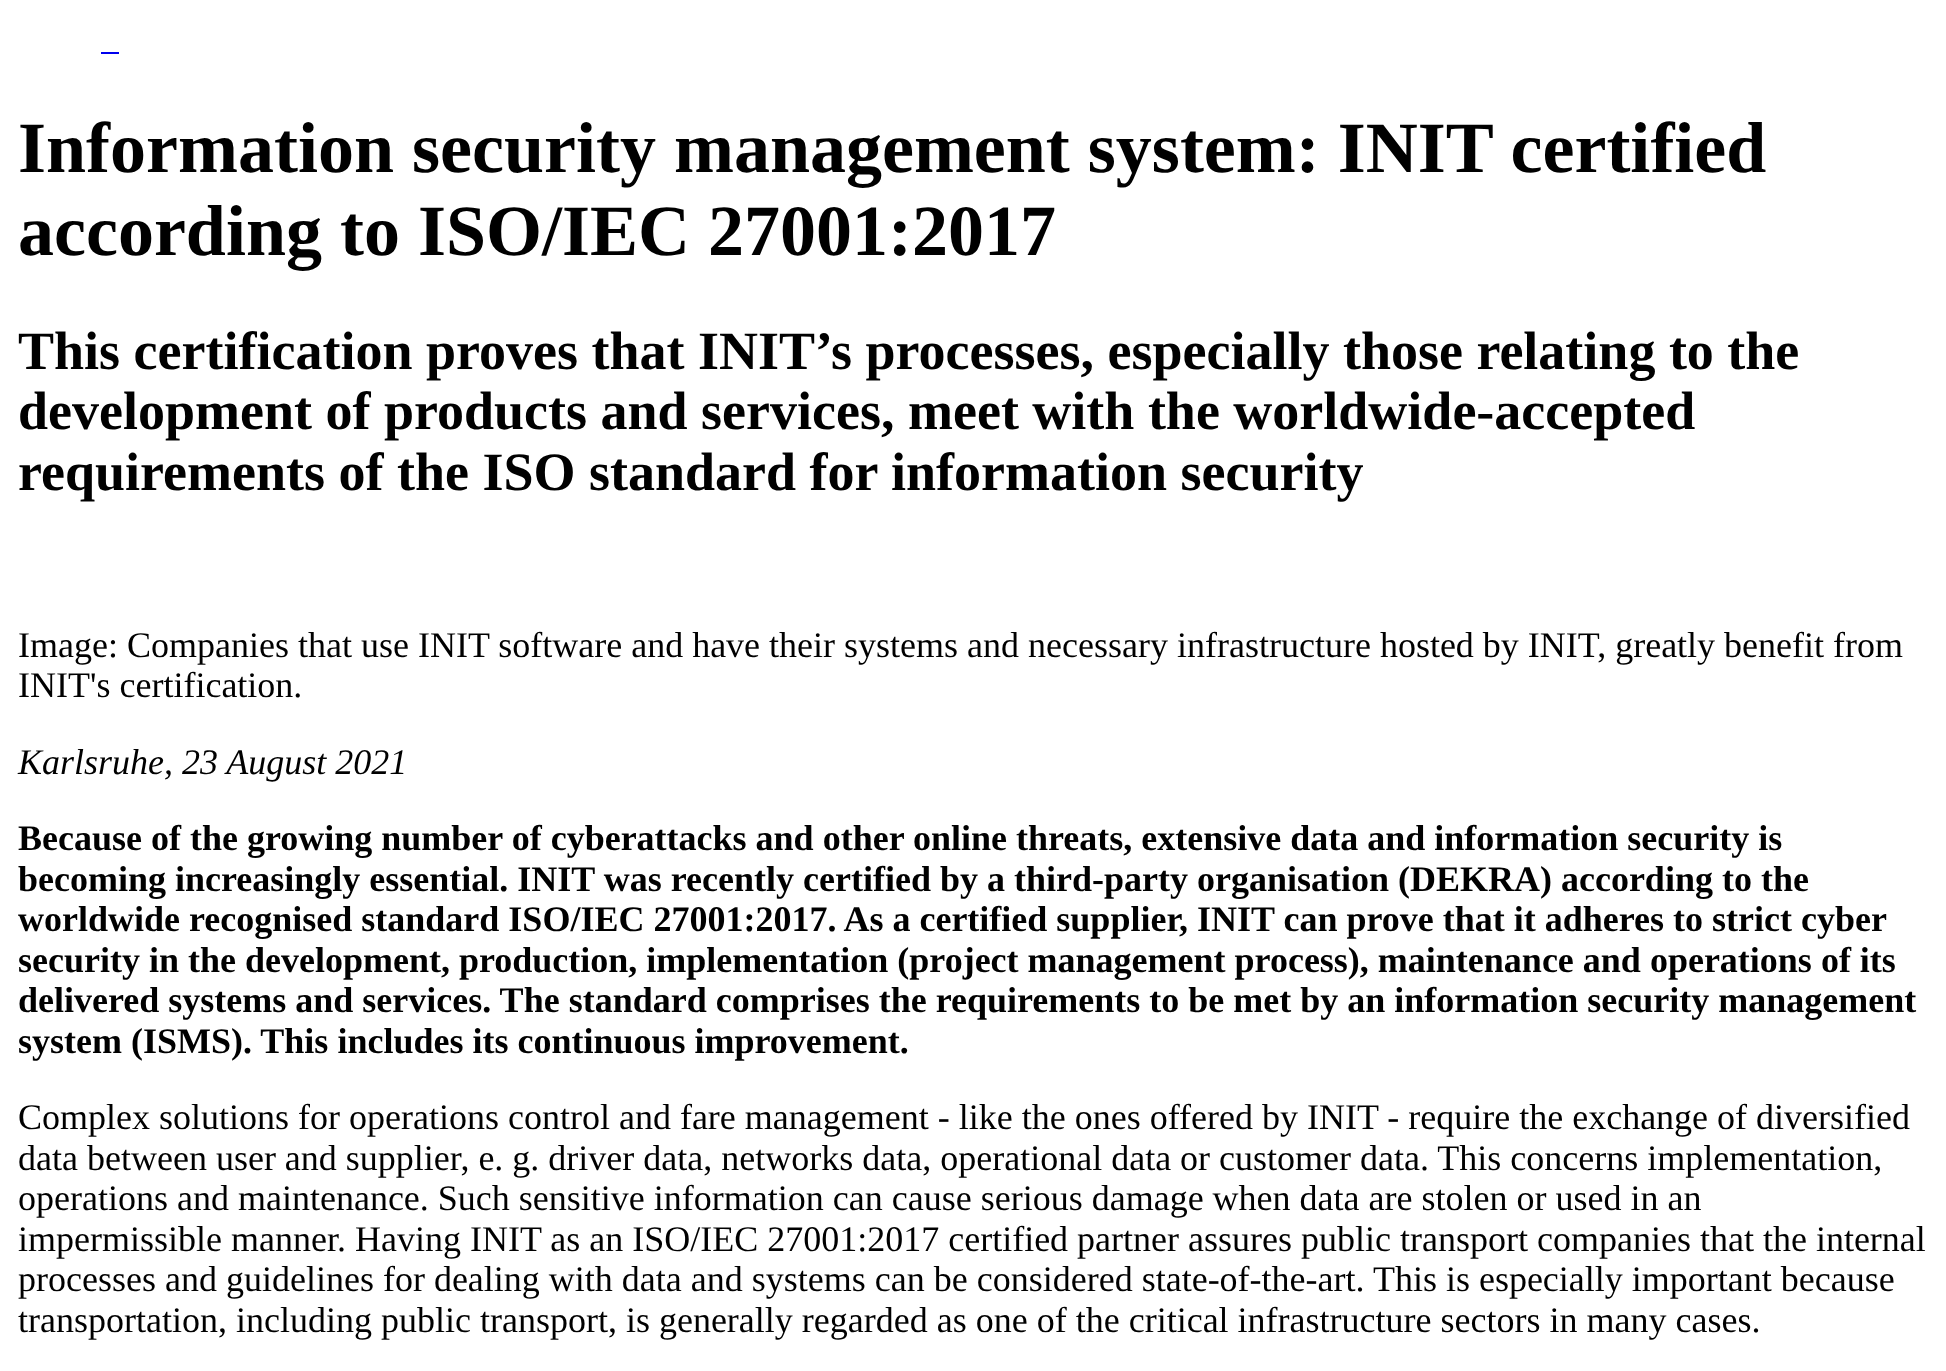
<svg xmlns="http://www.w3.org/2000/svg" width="1946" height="1371">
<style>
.a{font:bold 72px Liberation Serif;fill:#000}
.b{font:bold 54px Liberation Serif;fill:#000}
.c{font:36px Liberation Serif;fill:#000}
.d{font:italic 36px Liberation Serif;fill:#000}
.e{font:bold 36px Liberation Serif;fill:#000}
</style>
<rect width="100%" height="100%" fill="#fff"/>
<path fill="#00e" d="M101 52h18v2H101z"/>
<text class="a" x="18" y="172">Information security management system: INIT certified</text>
<text class="a" x="18" y="255">according to ISO/IEC 27001:2017</text>
<text class="b" x="18" y="369">This certification proves that INIT’s processes, especially those relating to the</text>
<text class="b" x="18" y="429">development of products and services, meet with the worldwide-accepted</text>
<text class="b" x="18" y="490">requirements of the ISO standard for information security</text>
<text class="c" x="18" y="657">Image: Companies that use INIT software and have their systems and necessary infrastructure hosted by INIT, greatly benefit from</text>
<text class="c" x="18" y="697">INIT's certification.</text>
<text class="d" x="18" y="774">Karlsruhe, 23 August 2021</text>
<text class="e" x="18" y="850">Because of the growing number of cyberattacks and other online threats, extensive data and information security is</text>
<text class="e" x="18" y="891">becoming increasingly essential. INIT was recently certified by a third-party organisation (DEKRA) according to the</text>
<text class="e" x="18" y="931">worldwide recognised standard ISO/IEC 27001:2017. As a certified supplier, INIT can prove that it adheres to strict cyber</text>
<text class="e" x="18" y="972">security in the development, production, implementation (project management process), maintenance and operations of its</text>
<text class="e" x="18" y="1012">delivered systems and services. The standard comprises the requirements to be met by an information security management</text>
<text class="e" x="18" y="1053">system (ISMS). This includes its continuous improvement.</text>
<text class="c" x="18" y="1129">Complex solutions for operations control and fare management - like the ones offered by INIT - require the exchange of diversified</text>
<text class="c" x="18" y="1170">data between user and supplier, e. g. driver data, networks data, operational data or customer data. This concerns implementation,</text>
<text class="c" x="18" y="1210">operations and maintenance. Such sensitive information can cause serious damage when data are stolen or used in an</text>
<text class="c" x="18" y="1251">impermissible manner. Having INIT as an ISO/IEC 27001:2017 certified partner assures public transport companies that the internal</text>
<text class="c" x="18" y="1291">processes and guidelines for dealing with data and systems can be considered state-of-the-art. This is especially important because</text>
<text class="c" x="18" y="1332">transportation, including public transport, is generally regarded as one of the critical infrastructure sectors in many cases.</text>
</svg>
